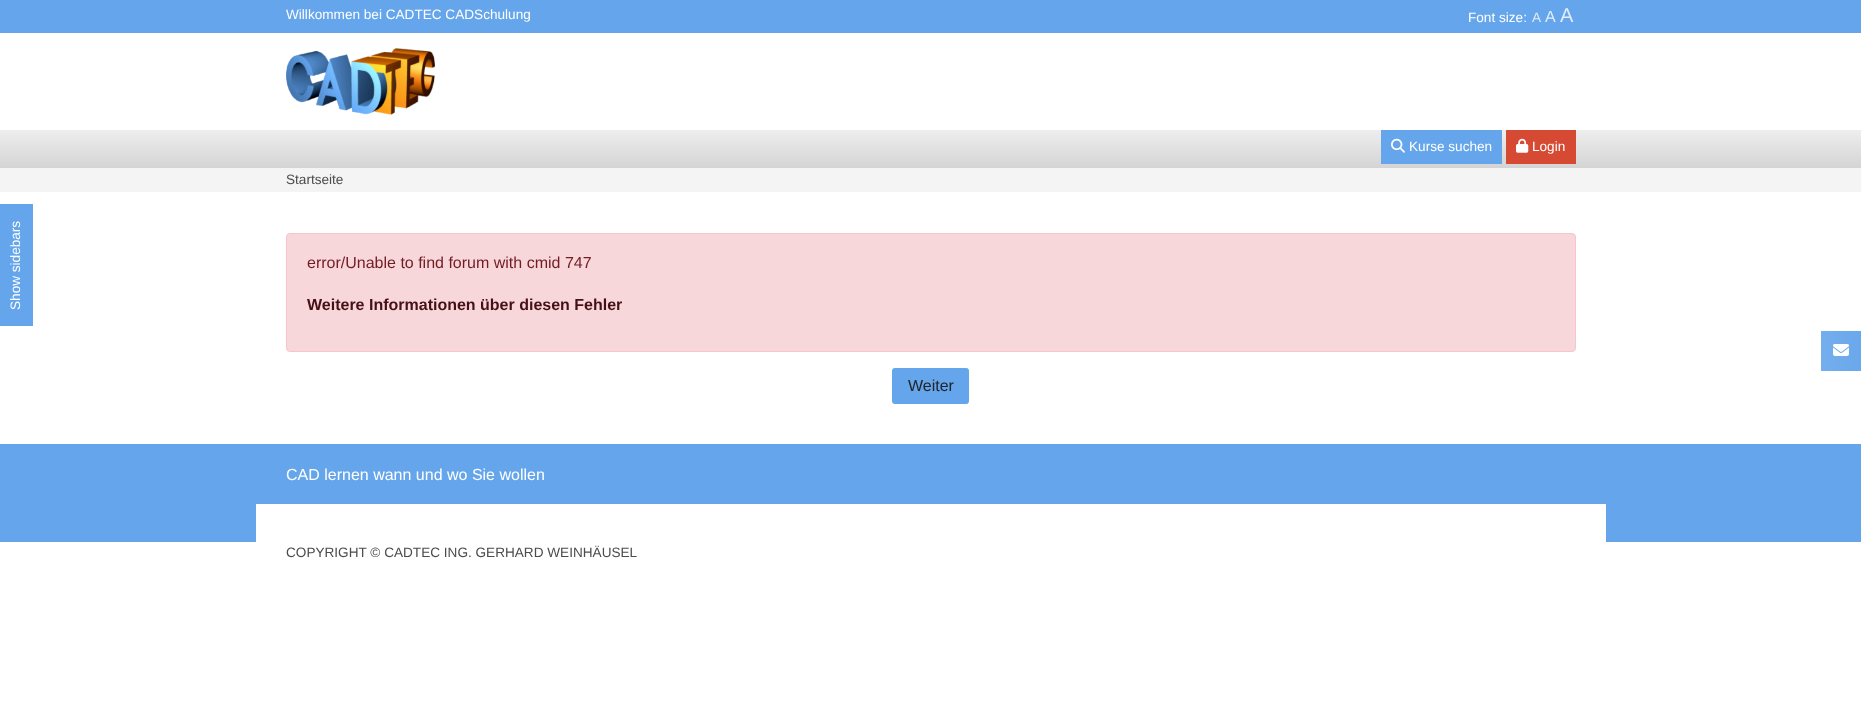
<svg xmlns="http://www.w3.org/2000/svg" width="1861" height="701">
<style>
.a{font:13.6px Liberation Sans;fill:#fff}
.b{font:13.6px Liberation Sans;fill:#e0edfb}
.c{font:16px Liberation Sans;fill:#e0edfb}
.d{font:20px Liberation Sans;fill:#e0edfb}
.e{font:13.6px Liberation Sans;fill:#4c4c4c}
.f{font:16px Liberation Sans;fill:#721c24}
.g{font:bold 16px Liberation Sans;fill:#451116}
.h{font:16px Liberation Sans;fill:#212529}
.i{font:16px Liberation Sans;fill:#fff}
</style>
<defs>
<linearGradient id="g1" gradientUnits="userSpaceOnUse" x1="931" y1="130" x2="931" y2="168"><stop offset="0" stop-color="#eee"/><stop offset="1" stop-color="#d4d4d4"/></linearGradient>
<linearGradient id="g2" gradientUnits="userSpaceOnUse" x1="1821" y1="351" x2="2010" y2="351"><stop offset="0" stop-color="#74aeed"/><stop offset="1" stop-color="#4392e7"/></linearGradient>
</defs>
<rect width="100%" height="100%" fill="#fff"/>
<path fill="#64a5eb" d="M0 204h33v122H0z"/>
<path fill="#64a5eb" d="M0 0h1861v33H0z"/>
<image href="1.png" x="286" y="48" width="149" height="67"/>
<path fill="url(#g1)" d="M0 130h1861v38H0z"/>
<path fill="#64a5eb" d="M1381 130h121v34H1381z"/>
<image href="2.png" x="1391" y="138" width="14" height="15"/>
<path fill="#d64933" d="M1506 130h70v34H1506z"/>
<image href="3.png" x="1516" y="138" width="13" height="15"/>
<path fill="#f4f4f4" d="M0 168h1861v24H0z"/>
<rect fill="#f8d7da" stroke="#f5c6cb" x="286.5" y="233.5" width="1289" height="118" rx="3.5"/>
<rect fill="#64a5eb" stroke="#64a5eb" x="892.5" y="368.5" width="76" height="35" rx="2"/>
<path fill="#64a5eb" d="M0 444h1861v98H0z"/>
<path fill="#fff" d="M256 504h1350v38H256z"/>
<path fill="url(#g2)" d="M1821 331h40v40H1821z"/>
<image href="4.png" x="1833" y="344" width="16" height="12"/>
<text class="a" x="20" y="310" transform="rotate(-90 20 310)">Show sidebars</text>
<text class="a" x="286" y="19">Willkommen bei CADTEC CADSchulung</text>
<text class="a" x="1468" y="22">Font size:</text>
<text class="b" x="1532" y="22">A</text>
<text class="c" x="1545" y="22">A</text>
<text class="d" x="1560" y="22">A</text>
<text class="a" x="1409" y="151">Kurse suchen</text>
<text class="a" x="1532" y="151">Login</text>
<text class="e" x="286" y="184">Startseite</text>
<text class="f" x="307" y="268">error/Unable to find forum with cmid 747</text>
<text class="g" x="307" y="310">Weitere Informationen über diesen Fehler</text>
<text class="h" x="908" y="391">Weiter</text>
<text class="i" x="286" y="480">CAD lernen wann und wo Sie wollen</text>
<text class="e" x="286" y="557">COPYRIGHT © CADTEC ING. GERHARD WEINHÄUSEL</text>
</svg>
